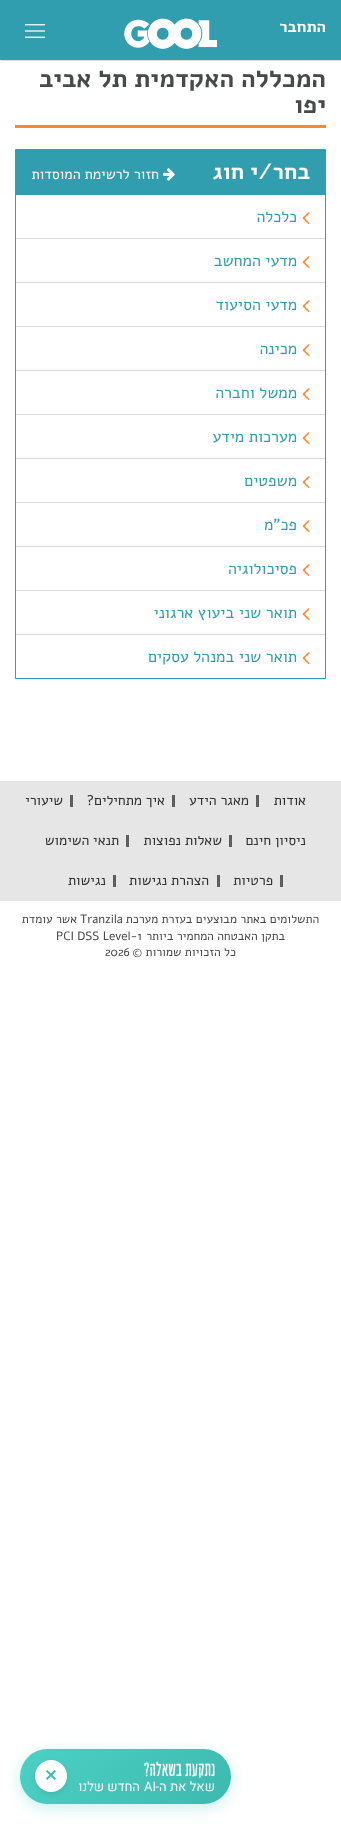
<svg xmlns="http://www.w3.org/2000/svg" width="341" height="1824">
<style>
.a{font:bold 16px Alef;direction:rtl;fill:#fff}
.b{font:bold 25px Alef;direction:rtl;fill:#484a4a}
.c{font:bold 22px Alef;direction:rtl;fill:#fff}
.d{font:14.25px Alef;direction:rtl;fill:#fff}
.e{font:16px Alef;direction:rtl;fill:#319eaf}
.f{font:14px Alef;direction:rtl;fill:#313131}
.g{font:12px Alef;direction:rtl;fill:#484a4a}
.h{font:12px Alef;fill:#484a4a}
.i{font:bold 19px 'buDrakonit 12';letter-spacing:0.25px;direction:rtl;fill:#fff}
.j{font:13px Heebo;direction:rtl;fill:#f6fcfc}
.k{font:13px Heebo;fill:#f6fcfc}
.l{font:bold 16px DejaVu Sans;fill:#3db9af}
</style>
<defs>
<clipPath id="clip1"><path d="M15 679h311v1H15z"/></clipPath>
<linearGradient id="g1" gradientUnits="userSpaceOnUse" x1="59" y1="1710" x2="192" y2="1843"><stop offset="0" stop-color="#4cd1c5"/><stop offset="1" stop-color="#3db9af"/></linearGradient>
</defs>
<rect width="100%" height="100%" fill="#fff"/>
<path fill="#0000001f" filter="blur(0.5px)" d="M1 1h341v60H1z"/>
<path fill="#319eaf" d="M0 0h341v60H0z"/>
<image href="1.png" x="124" y="18" width="94" height="31"/>
<image href="2.png" x="25" y="24" width="20" height="14"/>
<path fill="#fb8833" d="M15 125h311v3H15z"/>
<g clip-path="url(#clip1)">
<path fill="#0000000d" filter="blur(0.5px)" d="M15 150h311v530H15z"/>
</g>
<path fill="none" stroke="#319eaf" d="M15.5 149.5h310v529H15.5z"/>
<path fill="#319eaf" d="M16 150h309v45H16z"/>
<image href="3.png" x="163" y="168" width="12" height="13"/>
<path fill="#ddd" d="M16 238h309v1H16z"/>
<image href="4.png" x="302" y="212" width="8" height="12"/>
<path fill="#ddd" d="M16 282h309v1H16z"/>
<image href="4.png" x="302" y="256" width="8" height="12"/>
<path fill="#ddd" d="M16 326h309v1H16z"/>
<image href="4.png" x="302" y="300" width="8" height="12"/>
<path fill="#ddd" d="M16 370h309v1H16z"/>
<image href="4.png" x="302" y="344" width="8" height="12"/>
<path fill="#ddd" d="M16 414h309v1H16z"/>
<image href="4.png" x="302" y="388" width="8" height="12"/>
<path fill="#ddd" d="M16 458h309v1H16z"/>
<image href="4.png" x="302" y="432" width="8" height="12"/>
<path fill="#ddd" d="M16 502h309v1H16z"/>
<image href="4.png" x="302" y="476" width="8" height="12"/>
<path fill="#ddd" d="M16 546h309v1H16z"/>
<image href="4.png" x="302" y="520" width="8" height="12"/>
<path fill="#ddd" d="M16 590h309v1H16z"/>
<image href="4.png" x="302" y="564" width="8" height="12"/>
<image href="4.png" x="302" y="608" width="8" height="12"/>
<path fill="#ddd" d="M16 634h309v1H16z"/>
<image href="4.png" x="302" y="652" width="8" height="12"/>
<path fill="#e6e6e6" d="M0 781h341v120H0z"/>
<path fill="#5e5e5e" d="M256 795h3v12H256z"/>
<path fill="#5e5e5e" d="M172 795h3v12H172z"/>
<path fill="#5e5e5e" d="M70 795h3v12H70z"/>
<path fill="#5e5e5e" d="M229 835h3v12H229z"/>
<path fill="#5e5e5e" d="M126 835h3v12H126z"/>
<path fill="#5e5e5e" d="M280 875h3v12H280z"/>
<path fill="#5e5e5e" d="M217 875h3v12H217z"/>
<path fill="#5e5e5e" d="M113 875h3v12H113z"/>
<rect fill="#4cd1c54d" filter="blur(7.5px)" x="20" y="1753" width="211" height="55" rx="27.5"/>
<rect fill="url(#g1)" x="20" y="1749" width="211" height="55" rx="27.5"/>
<rect fill="#0000001a" filter="blur(2.5px)" x="35" y="1762" width="32" height="32" rx="16"/>
<circle fill="#fff" cx="51" cy="1776" r="16"/>
<text class="a" x="326" y="32">התחבר</text>
<text class="b" x="326" y="87">המכללה האקדמית תל אביב</text>
<text class="b" x="326" y="113">יפו</text>
<text class="c" x="310" y="179">בחר/י חוג</text>
<text class="d" x="159" y="179">חזור לרשימת המוסדות</text>
<text class="e" x="297" y="222">כלכלה</text>
<text class="e" x="297" y="266">מדעי המחשב</text>
<text class="e" x="297" y="310">מדעי הסיעוד</text>
<text class="e" x="297" y="354">מכינה</text>
<text class="e" x="297" y="398">ממשל וחברה</text>
<text class="e" x="297" y="442">מערכות מידע</text>
<text class="e" x="297" y="486">משפטים</text>
<text class="e" x="297" y="530">פכ"מ</text>
<text class="e" x="297" y="574">פסיכולוגיה</text>
<text class="e" x="297" y="618">תואר שני ביעוץ ארגוני</text>
<text class="e" x="297" y="662">תואר שני במנהל עסקים</text>
<text class="f" x="306" y="805">אודות</text>
<text class="f" x="249" y="805">מאגר הידע</text>
<text class="f" x="165" y="805">איך מתחילים?</text>
<text class="f" x="63" y="805">שיעורי</text>
<text class="f" x="306" y="845">ניסיון חינם</text>
<text class="f" x="222" y="845">שאלות נפוצות</text>
<text class="f" x="119" y="845">תנאי השימוש</text>
<text class="f" x="273" y="885">פרטיות</text>
<text class="f" x="209" y="885">הצהרת נגישות</text>
<text class="f" x="106" y="885">נגישות</text>
<text class="g" x="319" y="923">התשלומים באתר מבוצעים בעזרת מערכת</text>
<text class="h" x="80" y="923">Tranzila</text>
<text class="g" x="77" y="923">אשר עומדת</text>
<text class="g" x="285" y="940">בתקן האבטחה המחמיר ביותר</text>
<text class="h" x="56" y="940">PCI DSS Level-1</text>
<text class="g" x="236" y="956">כל הזכויות שמורות ©</text>
<text class="h" x="105" y="956">2026</text>
<text class="i" x="215" y="1776">נתקעת בשאלה?</text>
<text class="j" x="215" y="1791">שאל את ה-</text>
<text class="k" x="144" y="1791">AI</text>
<text class="j" x="140" y="1791">החדש שלנו</text>
<text class="l" x="44" y="1781">✕</text>
</svg>
